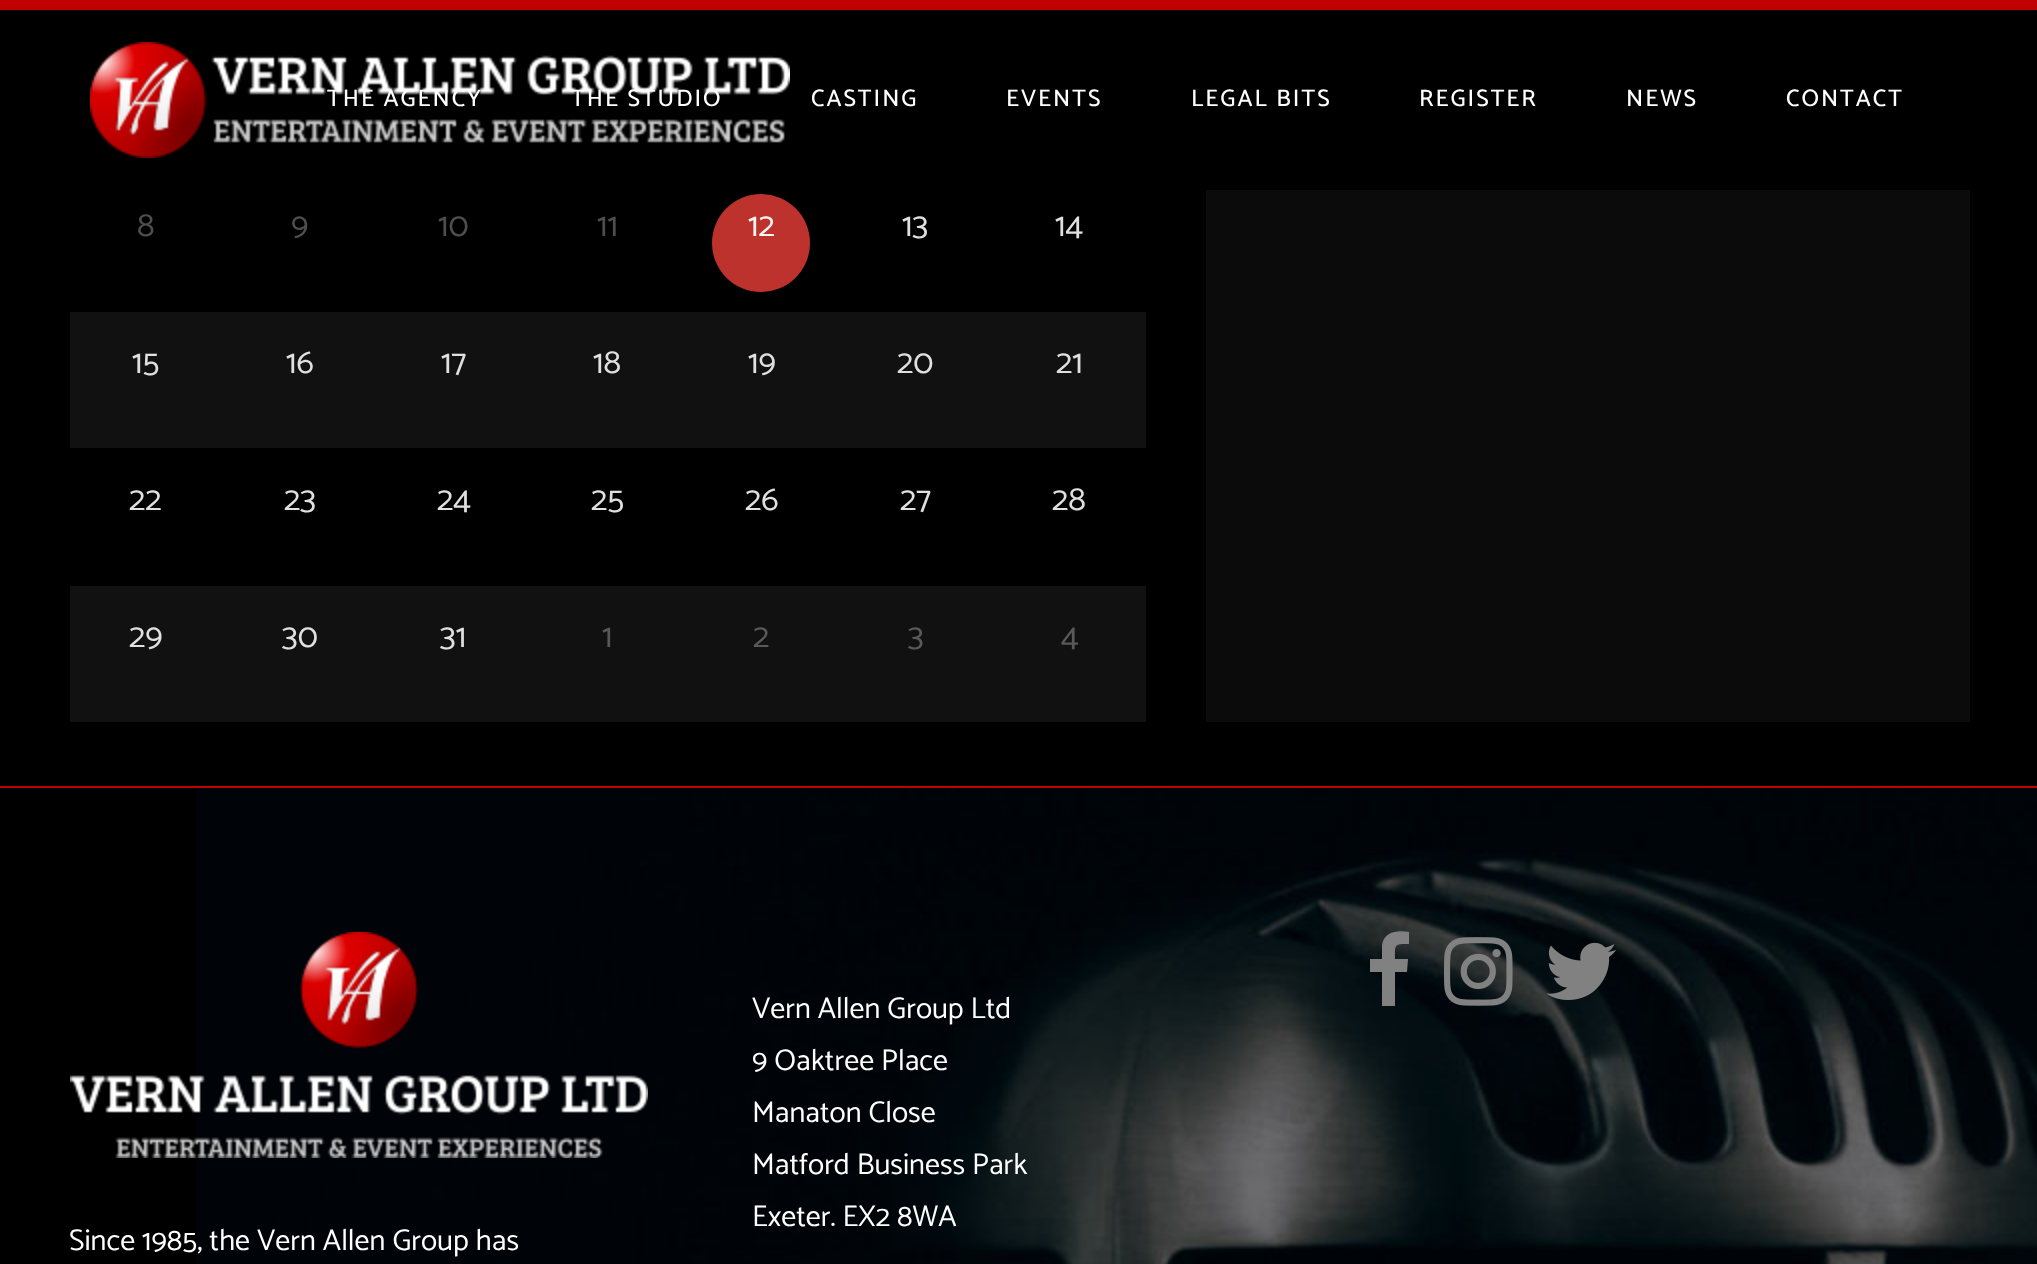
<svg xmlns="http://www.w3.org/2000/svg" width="2037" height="1264">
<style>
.a{font:500 24px Catamaran;letter-spacing:2px;fill:#fff}
.b{font:34px Catamaran;fill:#4e4e4e}
.c{font:34px Catamaran;fill:#fcf5f4}
.d{font:34px Catamaran;fill:#e0e0e0}
.e{font:34px Catamaran;fill:#595959}
.f{font:30px Catamaran;fill:#fff}
</style>
<rect width="100%" height="100%" fill="#000"/>
<path fill="#c10000" d="M0 0h2037v10H0z"/>
<image href="1.png" x="90" y="42" width="700" height="116"/>
<circle fill="#bd322c" cx="761" cy="243" r="49"/>
<path fill="#111" d="M70 312h1076v136H70z"/>
<path fill="#111" d="M70 586h1076v136H70z"/>
<path fill="#0b0b0b" d="M1206 190h764v532H1206z"/>
<image href="2.png" x="196" y="788" width="1841" height="476"/>
<path fill="#c10000" d="M0 786h2037v2H0z"/>
<path fill="#818181" d="M1409 932v12c-15 0-14 0-14 15h13l-1 13h-12v34h-13v-34h-12v-13h12v-14c2-14 16-15 27-13z"/>
<image href="3.png" x="1444" y="937" width="69" height="69"/>
<image href="4.png" x="1546" y="942" width="71" height="58"/>
<image href="5.png" x="70" y="932" width="578" height="226"/>
<text class="a" x="327" y="106">THE AGENCY</text>
<text class="a" x="571" y="106">THE STUDIO</text>
<text class="a" x="811" y="106">CASTING</text>
<text class="a" x="1006" y="106">EVENTS</text>
<text class="a" x="1191" y="106">LEGAL BITS</text>
<text class="a" x="1419" y="106">REGISTER</text>
<text class="a" x="1626" y="106">NEWS</text>
<text class="a" x="1786" y="106">CONTACT</text>
<text class="b" x="137" y="236">8</text>
<text class="b" x="291" y="236">9</text>
<text class="b" x="438" y="236">10</text>
<text class="b" x="597" y="236">11</text>
<text class="c" x="748" y="236">12</text>
<text class="d" x="902" y="236">13</text>
<text class="d" x="1055" y="236">14</text>
<text class="d" x="132" y="373">15</text>
<text class="d" x="286" y="373">16</text>
<text class="d" x="441" y="373">17</text>
<text class="d" x="593" y="373">18</text>
<text class="d" x="748" y="373">19</text>
<text class="d" x="897" y="373">20</text>
<text class="d" x="1056" y="373">21</text>
<text class="d" x="129" y="510">22</text>
<text class="d" x="284" y="510">23</text>
<text class="d" x="437" y="510">24</text>
<text class="d" x="591" y="510">25</text>
<text class="d" x="745" y="510">26</text>
<text class="d" x="900" y="510">27</text>
<text class="d" x="1052" y="510">28</text>
<text class="d" x="129" y="647">29</text>
<text class="d" x="282" y="647">30</text>
<text class="d" x="440" y="647">31</text>
<text class="e" x="602" y="647">1</text>
<text class="e" x="753" y="647">2</text>
<text class="e" x="908" y="647">3</text>
<text class="e" x="1061" y="647">4</text>
<text class="f" x="752" y="1018">Vern Allen Group Ltd</text>
<text class="f" x="752" y="1070">9 Oaktree Place</text>
<text class="f" x="752" y="1122">Manaton Close</text>
<text class="f" x="752" y="1174">Matford Business Park</text>
<text class="f" x="752" y="1226">Exeter. EX2 8WA</text>
<text class="f" x="69" y="1250">Since 1985, the Vern Allen Group has</text>
</svg>
